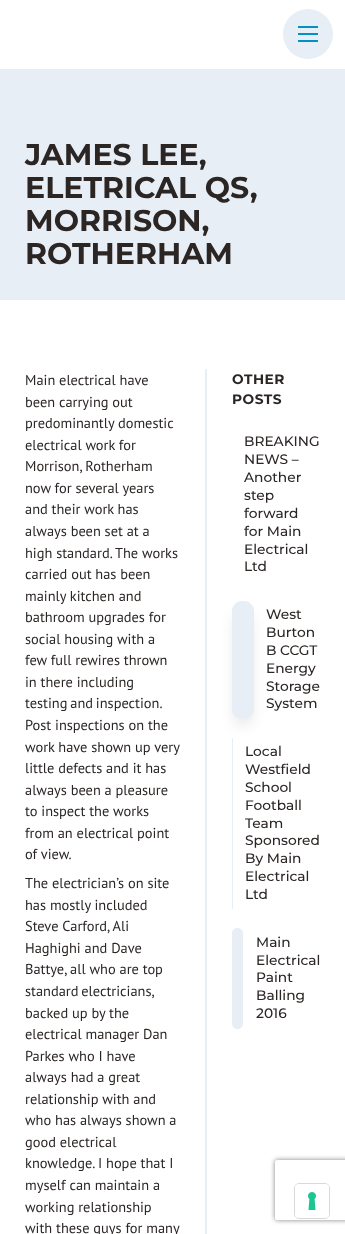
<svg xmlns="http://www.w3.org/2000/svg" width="345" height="1234">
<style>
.a{font:bold 30px Montserrat;fill:#2b2624}
.b{font:14.4px PT Sans;fill:#2b2624}
.c{font:bold 13.75px Montserrat;letter-spacing:0.5px;fill:#2b2624}
.d{font:500 13.75px Montserrat;fill:#2b2624}
</style>
<defs>
<clipPath id="clip1"><path d="M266 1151h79v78h-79zm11 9h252c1 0 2 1 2 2v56c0 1-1 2-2 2h-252c-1 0-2-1-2-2v-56c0-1 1-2 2-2z" clip-rule="evenodd"/></clipPath>
</defs>
<rect width="100%" height="100%" fill="#fff"/>
<circle fill="#e8eef6" cx="308" cy="34" r="25"/>
<path fill="#0291c7" d="M298 26h20v2H298z"/>
<path fill="#0291c7" d="M298 33h20v2H298z"/>
<path fill="#0291c7" d="M298 40h20v2H298z"/>
<path fill="#e8eef6" d="M0 69h345v231H0z"/>
<path fill="#e8eef6" d="M205 369h2v865H205z"/>
<rect fill="#00000026" filter="blur(7.5px)" x="237" y="616" width="12" height="108" rx="5"/>
<rect fill="#e8eef6" x="232" y="601" width="22" height="118" rx="10"/>
<rect fill="#e8eef6b3" x="232" y="601" width="22" height="118" rx="10"/>
<rect fill="#e8eef6" x="232" y="738" width="1" height="171" rx="0.5"/>
<rect fill="#e8eef6" x="232" y="928" width="11" height="101" rx="5.5"/>
<rect fill="#e8eef6b3" x="232" y="928" width="11" height="101" rx="5.5"/>
<g clip-path="url(#clip1)">
<rect fill="#808080" filter="blur(2.5px)" x="275" y="1160" width="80" height="60" rx="2"/>
</g>
<rect fill="none" stroke="#d9d9d9" x="294.5" y="1183.5" width="35" height="35" rx="4.5"/>
<rect fill="#fff" x="295" y="1184" width="34" height="34" rx="4"/>
<image href="1.png" x="308" y="1192" width="8" height="18"/>
<text class="a" x="25" y="165">JAMES LEE,</text>
<text class="a" x="25" y="198">ELETRICAL QS,</text>
<text class="a" x="25" y="231">MORRISON,</text>
<text class="a" x="25" y="264">ROTHERHAM</text>
<text class="b" x="25" y="385">Main electrical have</text>
<text class="b" x="25" y="407">been carrying out</text>
<text class="b" x="25" y="428">predominantly domestic</text>
<text class="b" x="25" y="450">electrical work for</text>
<text class="b" x="25" y="471">Morrison, Rotherham</text>
<text class="b" x="25" y="493">now for several years</text>
<text class="b" x="25" y="514">and their work has</text>
<text class="b" x="25" y="536">always been set at a</text>
<text class="b" x="25" y="558">high standard. The works</text>
<text class="b" x="25" y="579">carried out has been</text>
<text class="b" x="25" y="601">mainly kitchen and</text>
<text class="b" x="25" y="622">bathroom upgrades for</text>
<text class="b" x="25" y="644">social housing with a</text>
<text class="b" x="25" y="665">few full rewires thrown</text>
<text class="b" x="25" y="687">in there including</text>
<text class="b" x="25" y="708" word-spacing="-1">testing and inspection.</text>
<text class="b" x="25" y="730">Post inspections on the</text>
<text class="b" x="25" y="752">work have shown up very</text>
<text class="b" x="25" y="773">little defects and it has</text>
<text class="b" x="25" y="795">always been a pleasure</text>
<text class="b" x="25" y="816">to inspect the works</text>
<text class="b" x="25" y="838">from an electrical point</text>
<text class="b" x="25" y="859">of view.</text>
<text class="b" x="25" y="888">The electrician’s on site</text>
<text class="b" x="25" y="910">has mostly included</text>
<text class="b" x="25" y="931">Steve Carford, Ali</text>
<text class="b" x="25" y="953">Haghighi and Dave</text>
<text class="b" x="25" y="974">Battye, all who are top</text>
<text class="b" x="25" y="996" word-spacing="-1">standard electricians,</text>
<text class="b" x="25" y="1018">backed up by the</text>
<text class="b" x="25" y="1039">electrical manager Dan</text>
<text class="b" x="25" y="1061">Parkes who I have</text>
<text class="b" x="25" y="1082">always had a great</text>
<text class="b" x="25" y="1104">relationship with and</text>
<text class="b" x="25" y="1125">who has always shown a</text>
<text class="b" x="25" y="1147">good electrical</text>
<text class="b" x="25" y="1168">knowledge. I hope that I</text>
<text class="b" x="25" y="1190">myself can maintain a</text>
<text class="b" x="25" y="1212">working relationship</text>
<text class="b" x="25" y="1233">with these guys for many</text>
<text class="c" x="232" y="384">OTHER</text>
<text class="c" x="232" y="404">POSTS</text>
<text class="d" x="244" y="446">BREAKING</text>
<text class="d" x="244" y="464">NEWS –</text>
<text class="d" x="244" y="482">Another</text>
<text class="d" x="244" y="500">step</text>
<text class="d" x="244" y="518">forward</text>
<text class="d" x="244" y="536">for Main</text>
<text class="d" x="244" y="554">Electrical</text>
<text class="d" x="244" y="571">Ltd</text>
<text class="d" x="266" y="619">West</text>
<text class="d" x="266" y="637">Burton</text>
<text class="d" x="266" y="655">B CCGT</text>
<text class="d" x="266" y="673">Energy</text>
<text class="d" x="266" y="691">Storage</text>
<text class="d" x="266" y="708">System</text>
<text class="d" x="245" y="756">Local</text>
<text class="d" x="245" y="774">Westfield</text>
<text class="d" x="245" y="792">School</text>
<text class="d" x="245" y="810">Football</text>
<text class="d" x="245" y="828">Team</text>
<text class="d" x="245" y="845">Sponsored</text>
<text class="d" x="245" y="863">By Main</text>
<text class="d" x="245" y="881">Electrical</text>
<text class="d" x="245" y="899">Ltd</text>
<text class="d" x="256" y="947">Main</text>
<text class="d" x="256" y="965">Electrical</text>
<text class="d" x="256" y="982">Paint</text>
<text class="d" x="256" y="1000">Balling</text>
<text class="d" x="256" y="1018">2016</text>
</svg>
